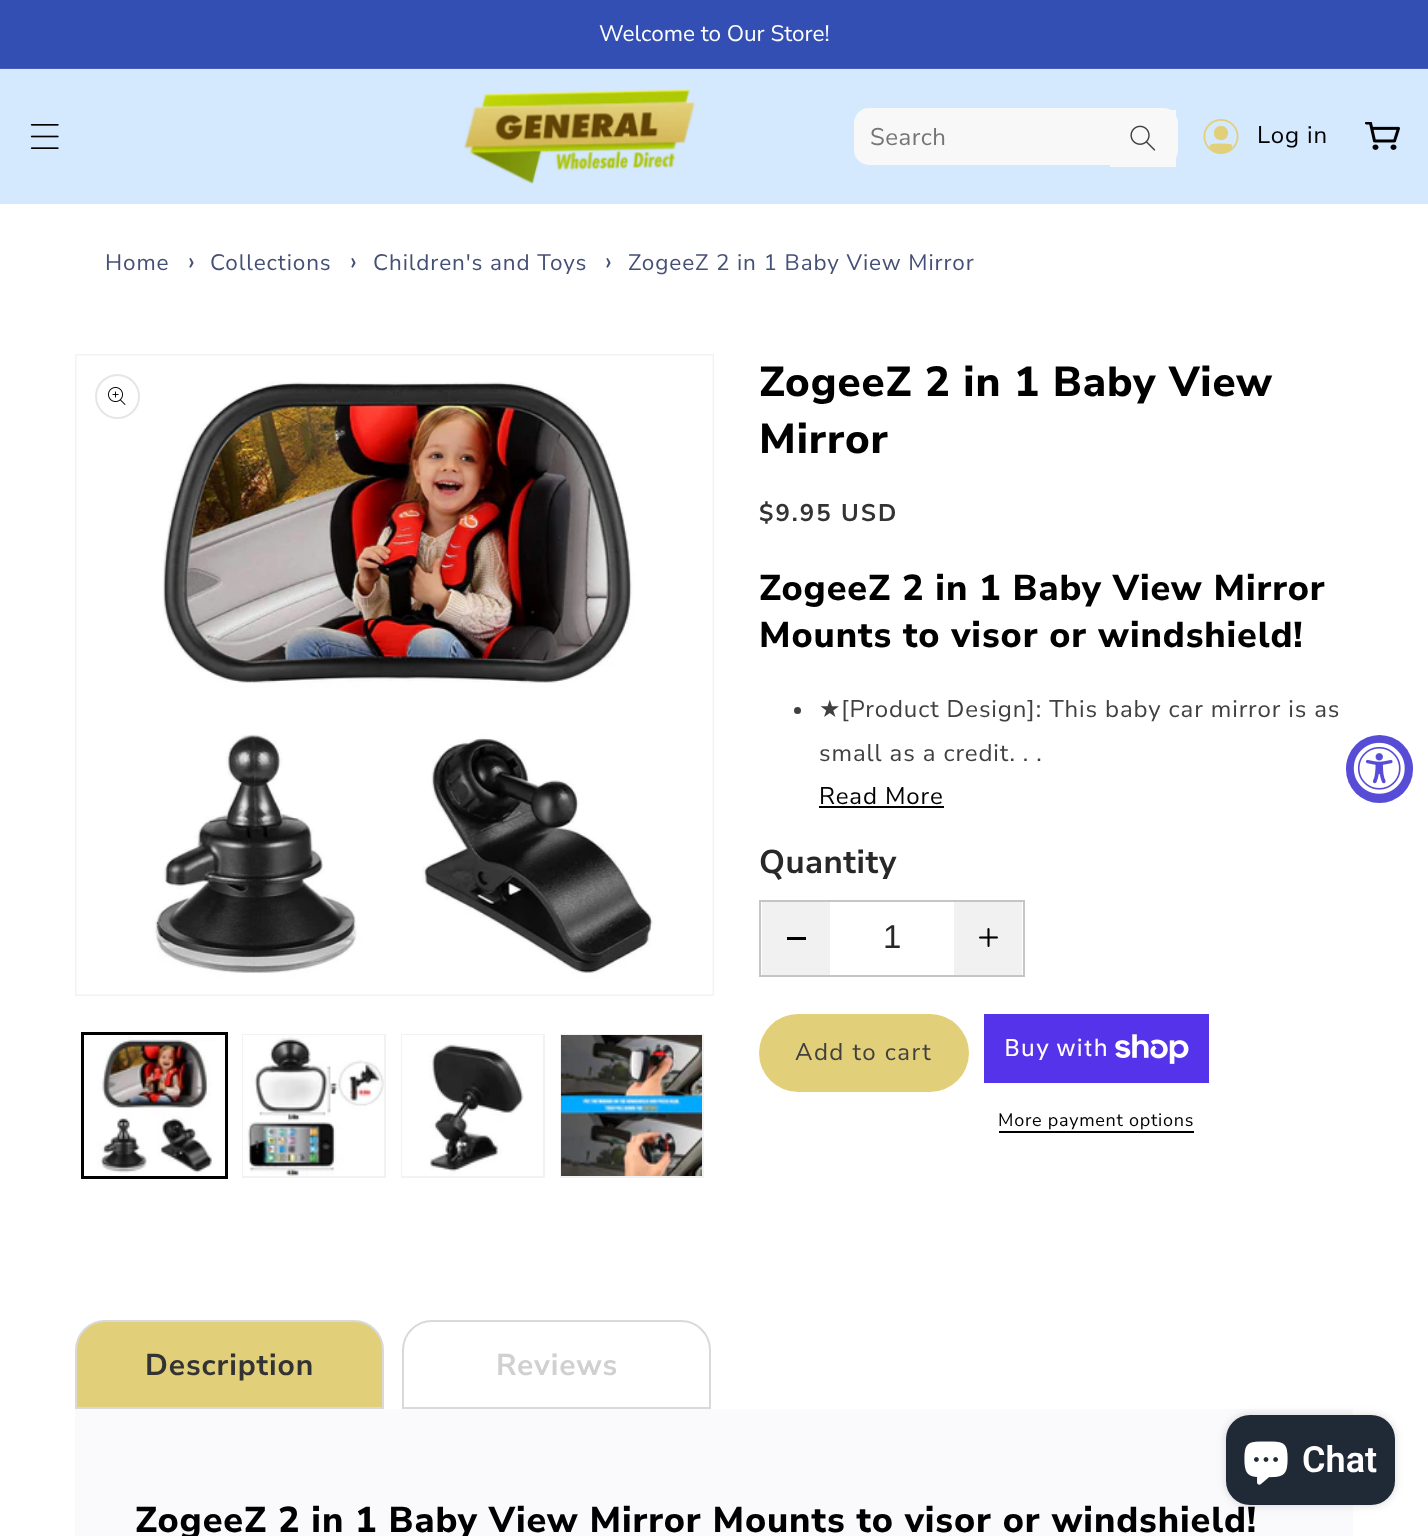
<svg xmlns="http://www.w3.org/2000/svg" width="1428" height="1536">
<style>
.a{font:22.5px Nunito Sans;fill:#fff}
.b{font:24px Nunito Sans;letter-spacing:0.5px;fill:#757575}
.c{font:24px Nunito Sans;letter-spacing:0.9px;fill:#000}
.d{font:22.5px Nunito Sans;letter-spacing:0.9px;fill:#465076}
.e{font:27px Nunito Sans;letter-spacing:0.9px;fill:#465076}
.f{font:800 42px Nunito Sans;letter-spacing:0.9px;fill:#000}
.g{font:bold 24px Nunito Sans;letter-spacing:2px;fill:#333}
.h{font:800 36px Nunito Sans;letter-spacing:0.9px;fill:#000}
.i{font:24px DejaVu Sans;letter-spacing:0.9px;fill:#404040}
.j{font:24px Nunito Sans;letter-spacing:0.9px;fill:#404040}
.k{font:bold 33px Nunito Sans;letter-spacing:0.5px;fill:#282828}
.l{font:33px Liberation Sans;fill:#282828}
.m{font:24px Nunito Sans;letter-spacing:1.5px;fill:#404040}
.n{font:24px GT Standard;letter-spacing:0.9px;fill:#fff}
.o{font:18px Nunito Sans;letter-spacing:0.75px;fill:#000}
.p{font:bold 30px Nunito Sans;letter-spacing:0.9px;fill:#333}
.q{font:bold 30px Nunito Sans;letter-spacing:0.9px;fill:#d0d0d0}
.r{font:600 36px Roboto;fill:#fff}
</style>
<rect width="100%" height="100%" fill="#fff"/>
<path fill="#334fb4" d="M0 0h1428v68H0z"/>
<path fill="#435dba" d="M0 68h1428v1H0z"/>
<path fill="#d4e8fe" d="M0 70h1428v134H0z"/>
<path fill="#d7eafe" d="M0 69h1428v1H0z"/>
<image href="1.png" x="30" y="124" width="29" height="25"/>
<image href="2.png" x="464" y="89" width="231" height="95"/>
<rect fill="#f8f8f8" x="854" y="108" width="324" height="57" rx="15"/>
<path fill="#f8f8f8" d="M1110 110h66v57H1110z"/>
<image href="3.png" x="1130" y="125" width="26" height="26"/>
<image href="4.png" x="1203" y="119" width="36" height="35"/>
<image href="5.png" x="1365" y="122" width="35" height="28"/>
<path fill="none" stroke="#f2f2f2" stroke-width="2" d="M76 355h637v640H76z"/>
<image href="6.png" x="76" y="355" width="637" height="640"/>
<circle fill="none" stroke="#e6e6e6" stroke-width="2" cx="117.5" cy="396.5" r="21.5"/>
<image href="7.png" x="108" y="387" width="18" height="18"/>
<path fill="none" stroke="#000" stroke-width="2" d="M82 1033h145v145H82z"/>
<path fill="none" stroke="#000" stroke-width="2" d="M84 1035h142v142H84z"/>
<image href="8.png" x="84" y="1035" width="141" height="141"/>
<path fill="none" stroke="#f2f2f2" stroke-width="2" d="M243 1035h142v142H243z"/>
<image href="9.png" x="243" y="1035" width="141" height="141"/>
<path fill="none" stroke="#f2f2f2" stroke-width="2" d="M402 1035h142v142H402z"/>
<image href="10.png" x="402" y="1035" width="141" height="141"/>
<path fill="none" stroke="#f2f2f2" stroke-width="2" d="M561 1035h142v142H561z"/>
<image href="11.png" x="561" y="1035" width="141" height="141"/>
<circle fill="#404040" cx="797.5" cy="710.5" r="3.5"/>
<path fill="#000" d="M819 806h125v2H819z"/>
<path fill="none" stroke="#c7c4c4" stroke-width="2" d="M760 901h264v75H760z"/>
<path fill="#f1f1f1" d="M762 902h68v73H762z"/>
<path fill="#000" d="M787 937h19v3H787z"/>
<path fill="#f1f1f1" d="M954 902h68v73H954z"/>
<image href="12.png" x="979" y="928" width="19" height="19"/>
<rect fill="#e2cf79" x="759" y="1014" width="210" height="78" rx="39"/>
<path fill="#5433eb" d="M984 1014h225v69H984z"/>
<image href="13.png" x="1115" y="1034" width="74" height="30"/>
<path fill="#000" d="M999 1131h195v2H999z"/>
<path fill="#e2cf79" stroke="#d9d9d9" stroke-width="2" d="M105 1321h249c16 0 29 13 29 29v58h-307v-58c0-16 13-29 29-29z"/>
<path fill="none" stroke="#d9d9d9" stroke-width="2" d="M432 1321h249c16 0 29 13 29 29v58h-307v-58c0-16 13-29 29-29z"/>
<path fill="#fafafc" d="M75 1409h1278v127H75z"/>
<rect fill="#574cd5" x="1346" y="735" width="67" height="68" rx="33.5"/>
<image href="14.png" x="1353" y="742" width="52" height="52"/>
<rect fill="#00000026" filter="blur(4px)" x="1226" y="1415" width="169" height="90" rx="24"/>
<rect fill="#202a36" x="1226" y="1415" width="169" height="90" rx="24"/>
<image href="15.png" x="1244" y="1441" width="44" height="44"/>
<text class="a" x="599" y="41">Welcome to Our Store!</text>
<text class="b" x="870" y="145">Search</text>
<text class="c" x="1257" y="143">Log in</text>
<text class="d" x="105" y="270">Home</text>
<text class="e" x="188" y="270">›</text>
<text class="d" x="210" y="270">Collections</text>
<text class="e" x="350" y="270">›</text>
<text class="d" x="373" y="270">Children's and Toys</text>
<text class="e" x="605" y="270">›</text>
<text class="d" x="628" y="270">ZogeeZ 2 in 1 Baby View Mirror</text>
<text class="f" x="759" y="396">ZogeeZ 2 in 1 Baby View</text>
<text class="f" x="759" y="453">Mirror</text>
<text class="g" x="759" y="521">$9.95 USD</text>
<text class="h" x="759" y="600">ZogeeZ 2 in 1 Baby View Mirror</text>
<text class="h" x="759" y="647">Mounts to visor or windshield!</text>
<text class="i" x="819" y="717">★</text>
<text class="j" x="841" y="717">[Product Design]: This baby car mirror is as</text>
<text class="j" x="819" y="761">small as a credit. . .</text>
<text class="c" x="819" y="804">Read More</text>
<text class="k" x="759" y="873">Quantity</text>
<text class="l" x="883" y="948">1</text>
<text class="m" x="795" y="1060">Add to cart</text>
<text class="n" x="1004" y="1056">Buy with</text>
<text class="o" x="998" y="1126">More payment options</text>
<text class="p" x="145" y="1375">Description</text>
<text class="q" x="496" y="1375">Reviews</text>
<text class="h" x="135" y="1532">ZogeeZ 2 in 1 Baby View Mirror Mounts to visor or windshield!</text>
<text class="r" x="1302" y="1472">Chat</text>
</svg>
